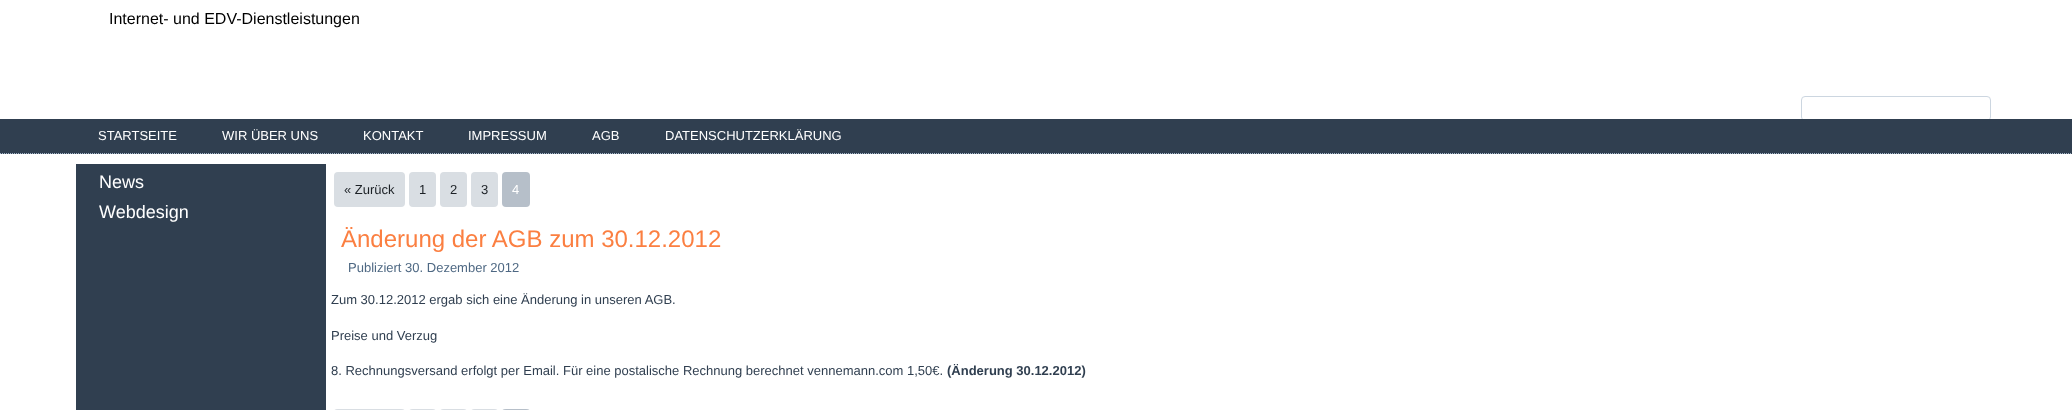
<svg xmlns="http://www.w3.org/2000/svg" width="2072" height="410">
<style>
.a{font:16px Liberation Sans;fill:#000}
.b{font:13px Liberation Sans;fill:#fff}
.c{font:18px Liberation Sans;fill:#fff}
.d{font:13px Liberation Sans;fill:#1c2126}
.e{font:24px Liberation Sans;fill:#fb7f41}
.f{font:13px Liberation Sans;fill:#4e6883}
.g{font:13px Liberation Sans;fill:#303f50}
.h{font:bold 13px Liberation Sans;fill:#303f50}
</style>
<rect width="100%" height="100%" fill="#fff"/>
<rect fill="none" stroke="#ccd6e0" x="1801.5" y="96.5" width="189" height="24" rx="3.5"/>
<path fill="#303f50" d="M0 119h2072v35H0z"/>
<path fill="none" stroke="#a3b4c8" stroke-dasharray="1 1" d="M0 153.5h2072"/>
<path fill="#303f50" d="M76 164h250v246H76z"/>
<rect fill="#d9dee3" x="334" y="172" width="71" height="35" rx="4"/>
<rect fill="#d9dee3" x="409" y="172" width="27" height="35" rx="4"/>
<rect fill="#d9dee3" x="440" y="172" width="27" height="35" rx="4"/>
<rect fill="#d9dee3" x="471" y="172" width="27" height="35" rx="4"/>
<rect fill="#b6bfc9" x="502" y="172" width="28" height="35" rx="4"/>
<rect fill="#d9dee3" x="334" y="409" width="71" height="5" rx="4"/>
<rect fill="#d9dee3" x="409" y="409" width="27" height="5" rx="4"/>
<rect fill="#d9dee3" x="440" y="409" width="27" height="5" rx="4"/>
<rect fill="#d9dee3" x="471" y="409" width="27" height="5" rx="4"/>
<rect fill="#b6bfc9" x="502" y="409" width="28" height="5" rx="4"/>
<text class="a" x="109" y="24">Internet- und EDV-Dienstleistungen</text>
<text class="b" x="98" y="140">STARTSEITE</text>
<text class="b" x="222" y="140">WIR ÜBER UNS</text>
<text class="b" x="363" y="140">KONTAKT</text>
<text class="b" x="468" y="140">IMPRESSUM</text>
<text class="b" x="592" y="140">AGB</text>
<text class="b" x="665" y="140">DATENSCHUTZERKLÄRUNG</text>
<text class="c" x="99" y="188">News</text>
<text class="c" x="99" y="218">Webdesign</text>
<text class="d" x="344" y="194">« Zurück</text>
<text class="d" x="419" y="194">1</text>
<text class="d" x="450" y="194">2</text>
<text class="d" x="481" y="194">3</text>
<text class="b" x="512" y="194">4</text>
<text class="e" x="341" y="247">Änderung der AGB zum 30.12.2012</text>
<text class="f" x="348" y="272">Publiziert 30. Dezember 2012</text>
<text class="g" x="331" y="304">Zum 30.12.2012 ergab sich eine Änderung in unseren AGB.</text>
<text class="g" x="331" y="340">Preise und Verzug</text>
<text class="g" x="331" y="375">8. Rechnungsversand erfolgt per Email. Für eine postalische Rechnung berechnet vennemann.com 1,50€.</text>
<text class="h" x="947" y="375">(Änderung 30.12.2012)</text>
</svg>
